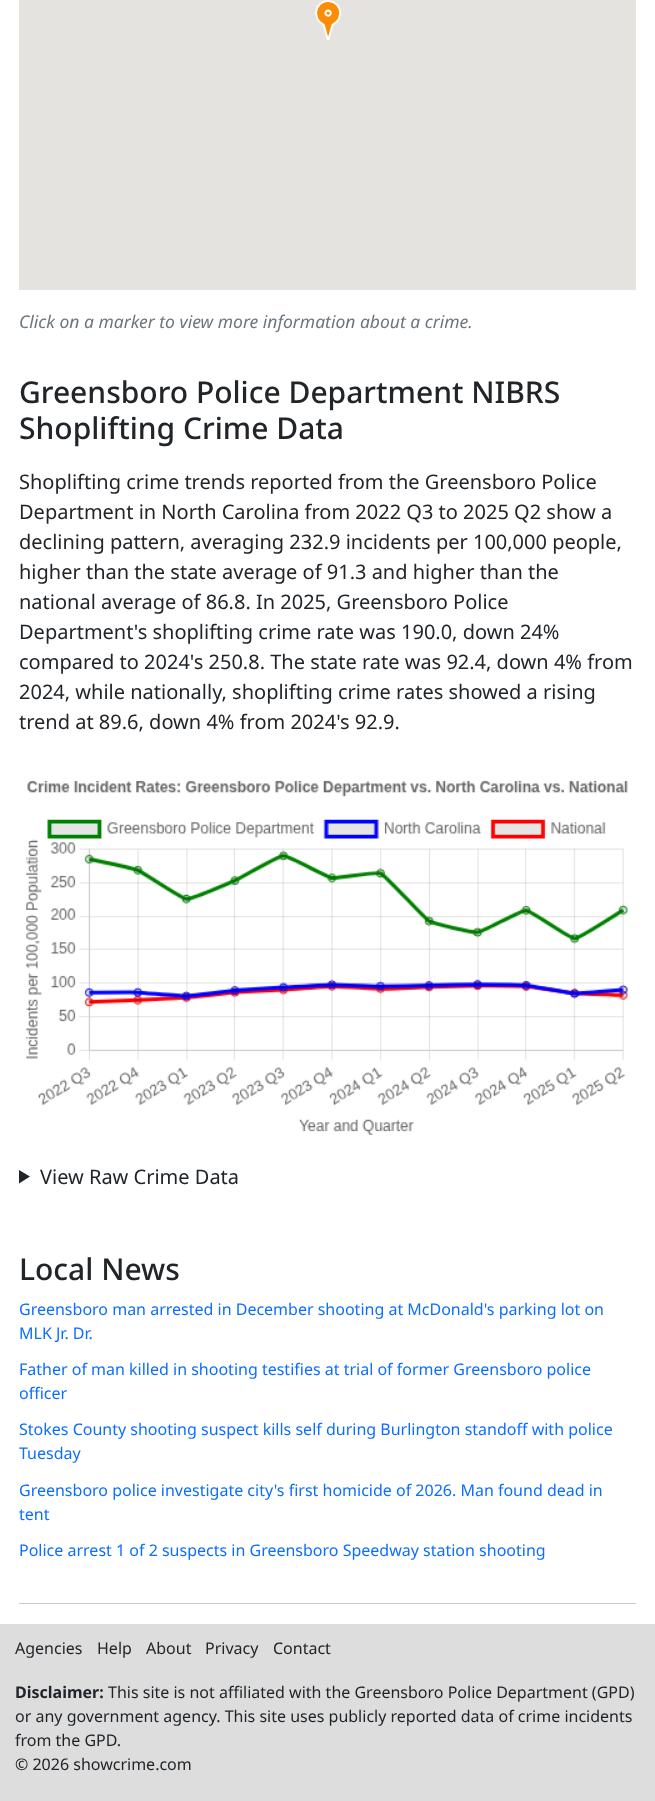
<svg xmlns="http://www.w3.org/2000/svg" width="655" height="1801">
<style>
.a{font:italic 17.5px Noto Sans;fill:#6c757d}
.b{font:500 30px Noto Sans;fill:#212529}
.c{font:20px Noto Sans;fill:#212529}
.d{font:16px Noto Sans;fill:#0d6efd}
.e{font:16px Noto Sans;fill:#212529}
.f{font:bold 16px Noto Sans;fill:#212529}
</style>
<rect width="100%" height="100%" fill="#fff"/>
<path fill="#e5e3df" d="M19 0h617v290H19z"/>
<image href="1.png" x="315" y="0" width="27" height="40"/>
<image href="2.png" x="26" y="780" width="602" height="355"/>
<path fill="#212529" d="M19 1170l11 6.5l-11 7z"/>
<path fill="#c8c9ca" d="M19 1603h617v1H19z"/>
<path fill="#ddd" d="M0 1624h655v177H0z"/>
<text class="a" x="19" y="328">Click on a marker to view more information about a crime.</text>
<text class="b" x="19" y="403">Greensboro Police Department NIBRS</text>
<text class="b" x="19" y="439">Shoplifting Crime Data</text>
<text class="c" x="19" y="489">Shoplifting crime trends reported from the Greensboro Police</text>
<text class="c" x="19" y="519">Department in North Carolina from 2022 Q3 to 2025 Q2 show a</text>
<text class="c" x="19" y="549">declining pattern, averaging 232.9 incidents per 100,000 people,</text>
<text class="c" x="19" y="579">higher than the state average of 91.3 and higher than the</text>
<text class="c" x="19" y="609">national average of 86.8. In 2025, Greensboro Police</text>
<text class="c" x="19" y="639">Department's shoplifting crime rate was 190.0, down 24%</text>
<text class="c" x="19" y="669">compared to 2024's 250.8. The state rate was 92.4, down 4% from</text>
<text class="c" x="19" y="699">2024, while nationally, shoplifting crime rates showed a rising</text>
<text class="c" x="19" y="729">trend at 89.6, down 4% from 2024's 92.9.</text>
<text class="c" x="40" y="1184">View Raw Crime Data</text>
<text class="b" x="19" y="1280">Local News</text>
<text class="d" x="19" y="1315">Greensboro man arrested in December shooting at McDonald's parking lot on</text>
<text class="d" x="19" y="1339">MLK Jr. Dr.</text>
<text class="d" x="19" y="1375">Father of man killed in shooting testifies at trial of former Greensboro police</text>
<text class="d" x="19" y="1399">officer</text>
<text class="d" x="19" y="1435">Stokes County shooting suspect kills self during Burlington standoff with police</text>
<text class="d" x="19" y="1459">Tuesday</text>
<text class="d" x="19" y="1496">Greensboro police investigate city's first homicide of 2026. Man found dead in</text>
<text class="d" x="19" y="1520">tent</text>
<text class="d" x="19" y="1556">Police arrest 1 of 2 suspects in Greensboro Speedway station shooting</text>
<text class="e" x="15" y="1654">Agencies</text>
<text class="e" x="97" y="1654">Help</text>
<text class="e" x="146" y="1654">About</text>
<text class="e" x="205" y="1654">Privacy</text>
<text class="e" x="273" y="1654">Contact</text>
<text class="f" x="15" y="1698">Disclaimer:</text>
<text class="e" x="108" y="1698">This site is not affiliated with the Greensboro Police Department (GPD)</text>
<text class="e" x="15" y="1722">or any government agency. This site uses publicly reported data of crime incidents</text>
<text class="e" x="15" y="1746">from the GPD.</text>
<text class="e" x="15" y="1770">© 2026 showcrime.com</text>
</svg>
